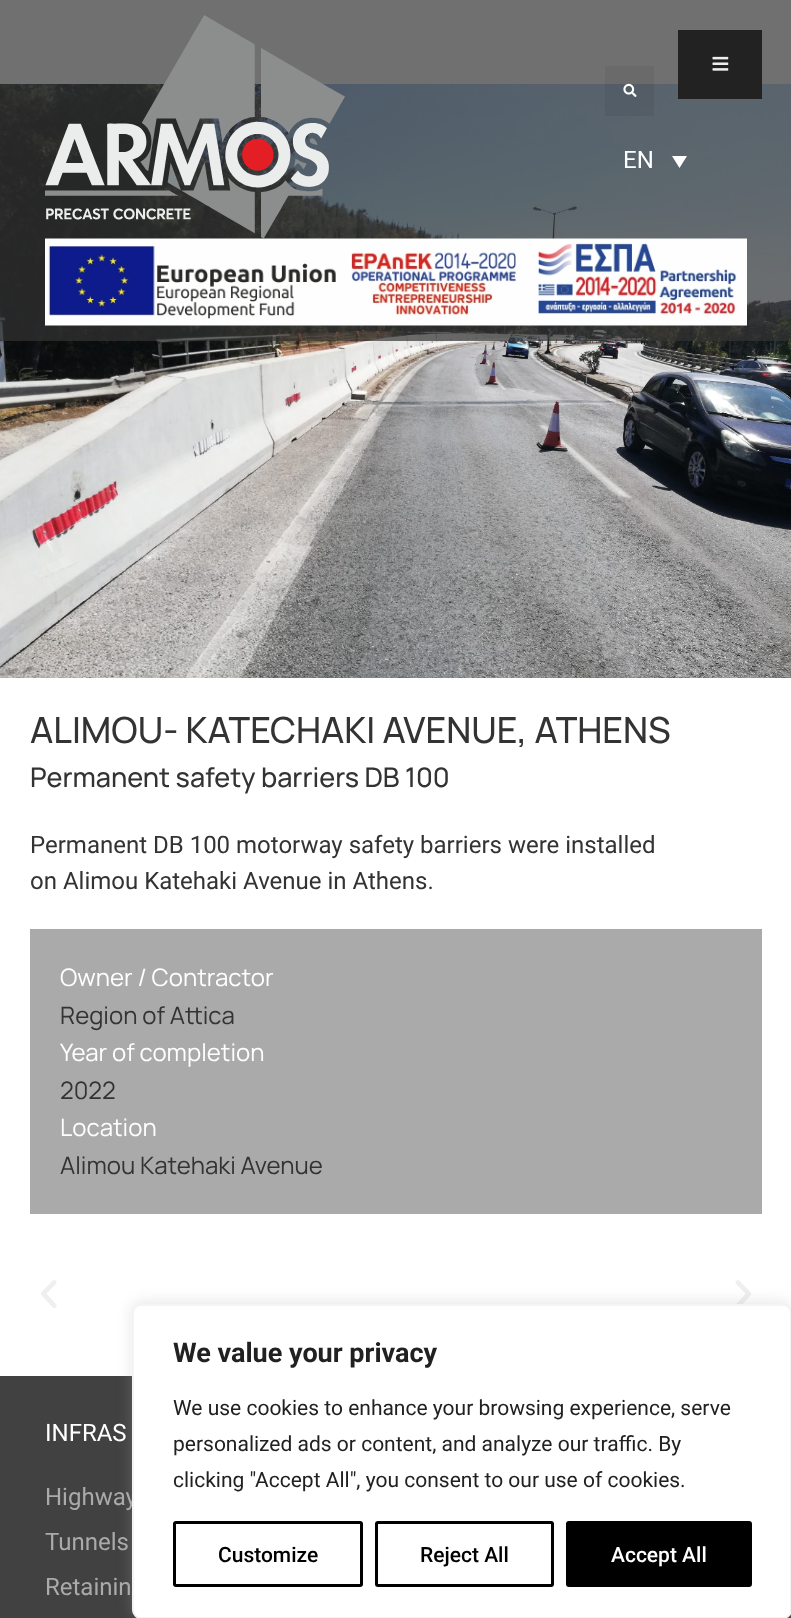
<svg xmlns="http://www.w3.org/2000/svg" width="791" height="1618">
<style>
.a{font:24px Roboto;fill:#fff}
.b{font:500 36px Manrope;fill:#333}
.c{font:500 27px Manrope;fill:#333}
.d{font:24px Roboto;fill:#333}
.e{font:24px Manrope;fill:#fff}
.f{font:24px Manrope;fill:#333}
.g{font:24px Roboto;fill:#aaa}
.h{font:bold 27px Roboto;fill:#212121}
.i{font:21px Roboto;fill:#212121}
.j{font:500 21px Roboto;fill:#000}
.k{font:500 21px Roboto;fill:#fff}
</style>
<rect width="100%" height="100%" fill="#fff"/>
<image href="5.png" x="0" y="84" width="791" height="594"/>
<path fill="#333333b3" d="M0 0h791v341H0z"/>
<image href="1.png" x="45" y="15" width="300" height="224"/>
<path fill="#0000000d" d="M605 66h49v50H605z"/>
<image href="2.png" x="623" y="83" width="14" height="14"/>
<path fill="#222" d="M678 30h84v69H678z"/>
<image href="3.png" x="712" y="56" width="17" height="15"/>
<path fill="#fff" d="M672 156h15l-7.5 12z"/>
<image href="4.png" x="45" y="238" width="702" height="88"/>
<path fill="#aaa" d="M30 929h732v285H30z"/>
<image href="6.png" x="41" y="1280" width="16" height="28"/>
<image href="7.png" x="735" y="1280" width="16" height="24"/>
<path fill="#414141" d="M0 1376h791v242H0z"/>
<rect fill="#acabab4d" filter="blur(7.5px)" x="132" y="1302" width="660" height="315" rx="9"/>
<text class="a" x="623" y="168">EN</text>
<text class="b" x="30" y="743">ALIMOU- KATECHAKI AVENUE, ATHENS</text>
<text class="c" x="30" y="787">Permanent safety barriers DB 100</text>
<text class="d" x="30" y="853">Permanent DB 100 motorway safety barriers were installed</text>
<text class="d" x="30" y="889">on Alimou Katehaki Avenue in Athens.</text>
<text class="e" x="60" y="986">Owner / Contractor</text>
<text class="f" x="60" y="1024">Region of Attica</text>
<text class="e" x="60" y="1061">Year of completion</text>
<text class="f" x="60" y="1099">2022</text>
<text class="e" x="60" y="1136">Location</text>
<text class="f" x="60" y="1174">Alimou Katehaki Avenue</text>
<text class="a" x="45" y="1441">INFRAS</text>
<text class="g" x="45" y="1505">Highway</text>
<text class="g" x="45" y="1550">Tunnels</text>
<text class="g" x="45" y="1595">Retainin</text>
<rect fill="#fff" stroke="#f4f4f4" stroke-width="2" x="133" y="1305" width="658" height="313" rx="8"/>
<text class="h" x="173" y="1362">We value your privacy</text>
<text class="i" x="173" y="1415">We use cookies to enhance your browsing experience, serve</text>
<text class="i" x="173" y="1451">personalized ads or content, and analyze our traffic. By</text>
<text class="i" x="173" y="1487">clicking "Accept All", you consent to our use of cookies.</text>
<rect fill="none" stroke="#000" stroke-width="3" x="174.5" y="1522.5" width="187" height="63" rx="1.5"/>
<text class="j" x="218" y="1562">Customize</text>
<rect fill="none" stroke="#000" stroke-width="3" x="376.5" y="1522.5" width="176" height="63" rx="1.5"/>
<text class="j" x="420" y="1562">Reject All</text>
<rect fill="#000" stroke="#000" stroke-width="3" x="567.5" y="1522.5" width="183" height="63" rx="1.5"/>
<text class="k" x="611" y="1562">Accept All</text>
</svg>
